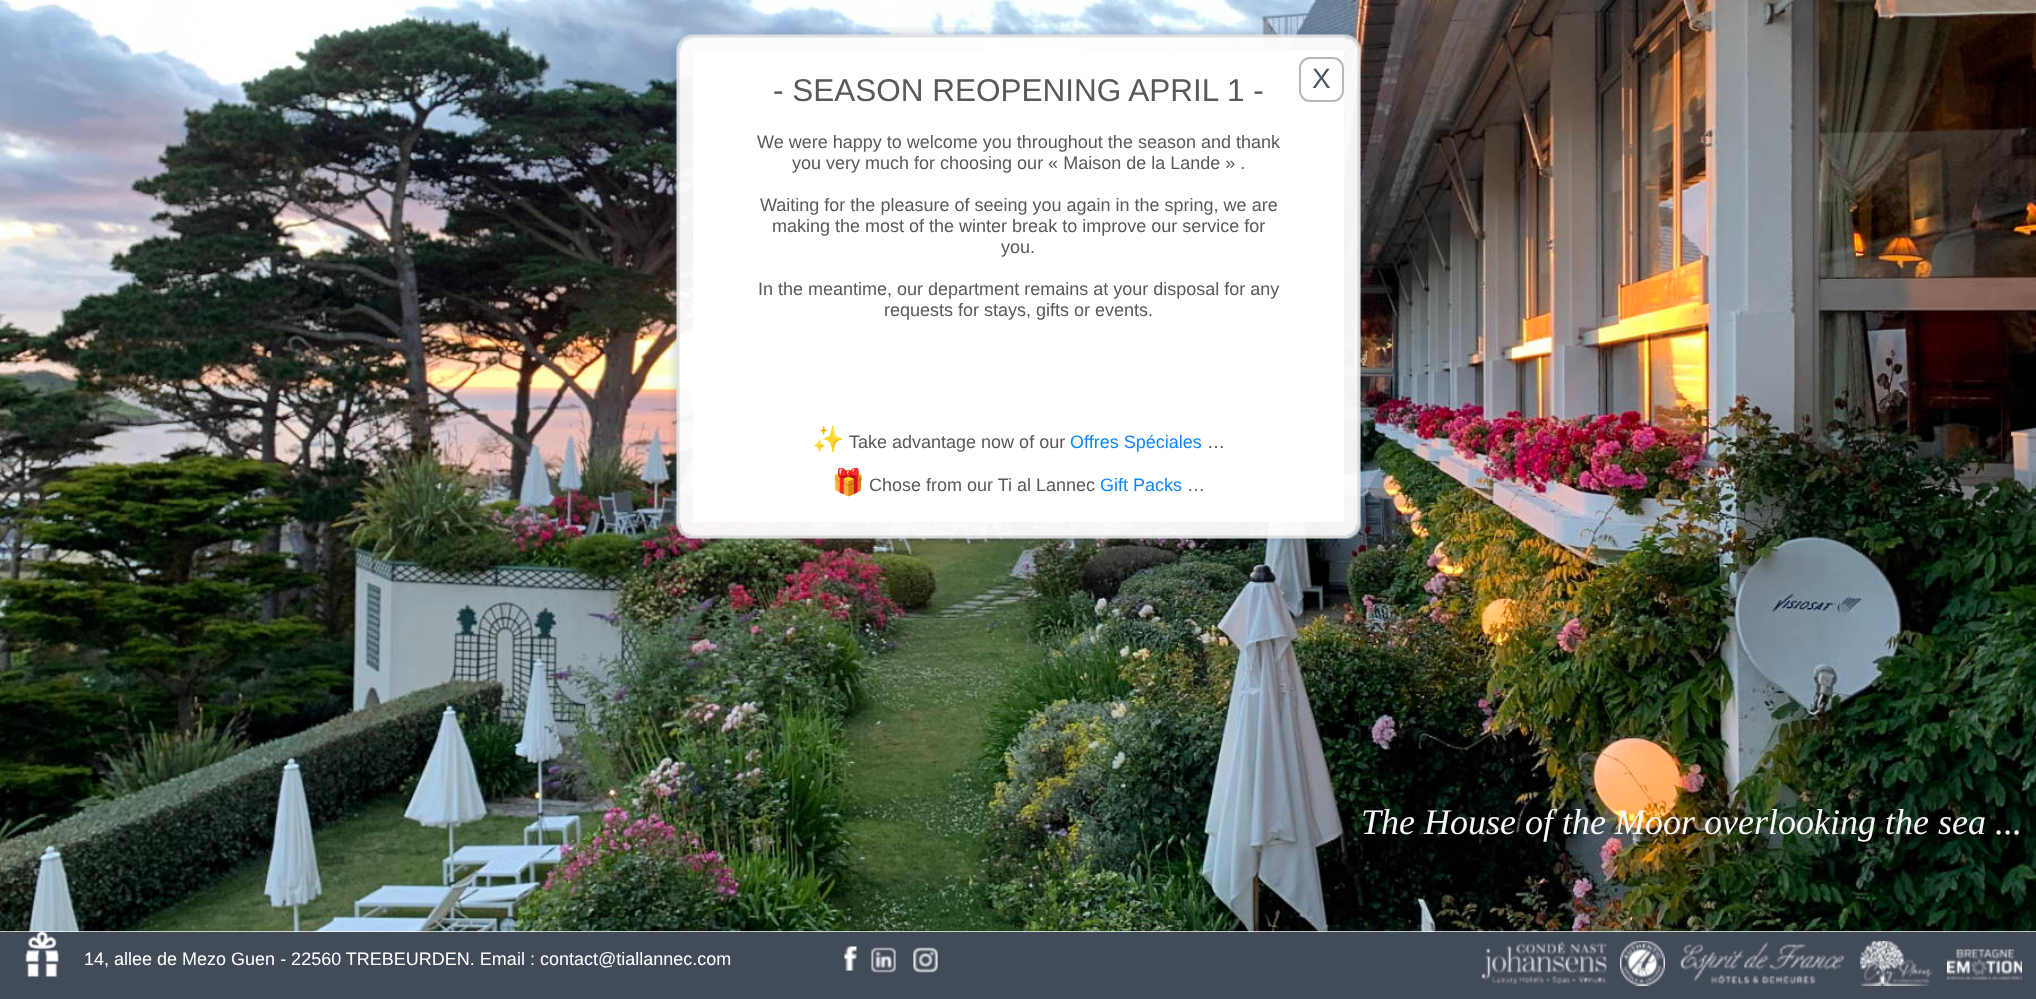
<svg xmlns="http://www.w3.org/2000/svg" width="2036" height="999">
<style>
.a{font:31.5px Liberation Sans;fill:#595959}
.b{font:18px Liberation Sans;fill:#595959}
.c{font:26px Noto Color Emoji;fill:#373737}
.d{font:18px Liberation Sans;fill:#0d86ff}
.e{font:28px Liberation Sans;fill:#4b5560}
.f{font:italic 36px Liberation Serif;fill:#f5f5f5}
.g{font:18px Liberation Sans;fill:#fff}
</style>
<rect width="100%" height="100%" fill="#424c58"/>
<path fill="#fff" d="M0 931h2036v1H0z"/>
<image href="9.png" x="0" y="0" width="2036" height="932"/>
<image href="1.png" x="670" y="28" width="23" height="23"/>
<image href="2.png" x="693" y="27" width="651" height="24"/>
<image href="3.png" x="1344" y="29" width="21" height="22"/>
<image href="4.png" x="669" y="51" width="24" height="471"/>
<path fill="#fffffff2" d="M693 51h651v471H693z"/>
<path fill="#fffffff2" d="M693 51h651v471H693z"/>
<rect fill="none" stroke="#b8b8b8" stroke-width="2" x="1300" y="58" width="43" height="43" rx="10"/>
<image href="5.png" x="1344" y="51" width="22" height="471"/>
<image href="6.png" x="671" y="522" width="22" height="22"/>
<image href="7.png" x="693" y="522" width="651" height="22"/>
<image href="8.png" x="1344" y="522" width="17" height="19"/>
<image href="10.png" x="25" y="931" width="34" height="46"/>
<image href="11.png" x="844" y="946" width="13" height="25"/>
<image href="12.png" x="871" y="947" width="25" height="26"/>
<image href="13.png" x="913" y="947" width="25" height="26"/>
<image href="14.png" x="1482" y="941" width="125" height="44"/>
<image href="15.png" x="1620" y="941" width="45" height="45"/>
<image href="16.png" x="1680" y="942" width="165" height="43"/>
<image href="17.png" x="1860" y="941" width="73" height="45"/>
<image href="18.png" x="1947" y="949" width="75" height="31"/>
<text class="a" x="773" y="101">- SEASON REOPENING APRIL 1 -</text>
<text class="b" x="757" y="148">We were happy to welcome you throughout the season and thank</text>
<text class="b" x="792" y="169">you very much for choosing our « Maison de la Lande » .</text>
<text class="b" x="760" y="211">Waiting for the pleasure of seeing you again in the spring, we are</text>
<text class="b" x="772" y="232">making the most of the winter break to improve our service for</text>
<text class="b" x="1001" y="253">you.</text>
<text class="b" x="758" y="295">In the meantime, our department remains at your disposal for any</text>
<text class="b" x="884" y="316">requests for stays, gifts or events.</text>
<text class="c" x="812" y="448">✨</text>
<text class="b" x="849" y="448">Take advantage now of our</text>
<text class="d" x="1070" y="448">Offres Spéciales</text>
<text class="b" x="1207" y="448">…</text>
<text class="c" x="832" y="491">🎁</text>
<text class="b" x="869" y="491">Chose from our Ti al Lannec</text>
<text class="d" x="1100" y="491">Gift Packs</text>
<text class="b" x="1187" y="491">…</text>
<text class="e" x="1312" y="88">X</text>
<text class="f" x="1361" y="834">The House of the Moor overlooking the sea ...</text>
<text class="g" x="84" y="965">14, allee de Mezo Guen - 22560 TREBEURDEN. Email : contact@tiallannec.com</text>
</svg>
